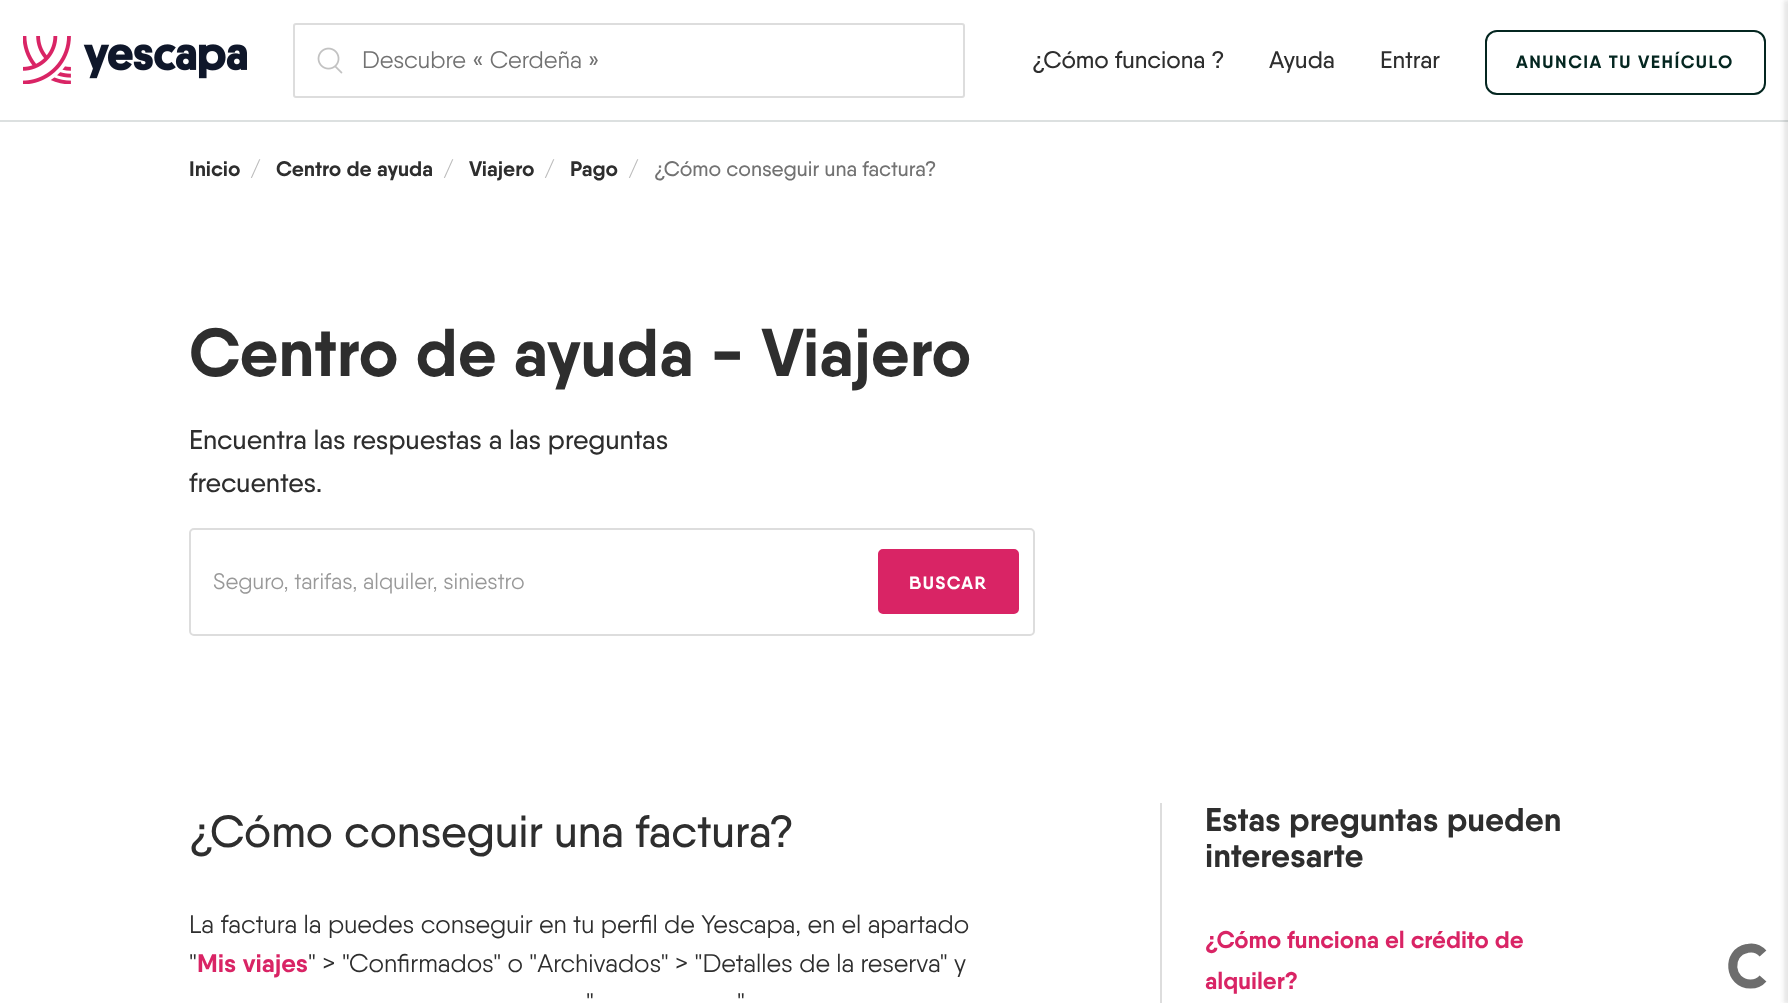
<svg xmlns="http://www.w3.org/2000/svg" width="1788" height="1003">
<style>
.a{font:24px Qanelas;fill:#727272}
.b{font:500 24px Qanelas;fill:#2e2e2e}
.c{font:bold 18px Qanelas;letter-spacing:1.5px;fill:#042620}
.d{font:bold 21px Qanelas;fill:#2e2e2e}
.e{font:500 21px Qanelas;fill:#bbb}
.f{font:500 21px Qanelas;fill:#727272}
.g{font:bold 67.5px Qanelas;fill:#2e2e2e}
.h{font:500 27px Qanelas;fill:#2e2e2e}
.i{font:22.5px Qanelas;fill:#999}
.j{font:bold 18px Qanelas;letter-spacing:1.5px;fill:#fff}
.k{font:500 45px Qanelas;fill:#2e2e2e}
.l{font:25.5px Qanelas;fill:#2e2e2e}
.m{font:bold 25.5px Qanelas;fill:#d92465}
.n{font:bold 33px Qanelas;fill:#2e2e2e}
.o{font:bold 24px Qanelas;fill:#d92465}
</style>
<rect width="100%" height="100%" fill="#fff"/>
<path fill="#dce0e0" d="M0 120h1788v2H0z"/>
<path fill="#0000000d" filter="blur(2px)" d="M1784 0h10v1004H1784z"/>
<image href="1.png" x="23" y="36" width="224" height="48"/>
<image href="2.png" x="317" y="47" width="26" height="27"/>
<rect fill="none" stroke="#ddd" stroke-width="2" x="294" y="24" width="670" height="73" rx="2"/>
<rect fill="none" stroke="#042620" stroke-width="2" x="1486" y="31" width="279" height="63" rx="11"/>
<path fill="#0000000d" filter="blur(2px)" d="M1784 0h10v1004H1784z"/>
<rect fill="none" stroke="#ddd" stroke-width="2" x="190" y="529" width="844" height="106" rx="4"/>
<rect fill="#d92465" stroke="#d92465" stroke-width="2" x="879" y="550" width="139" height="63" rx="4"/>
<path fill="#ddd" d="M1160 803h2v200H1160z"/>
<path fill="none" stroke="#6d6d6d" stroke-width="9" d="M1763 978.5c-3 3.5-8 5.5-12.5 5.5c-21.5 0-24.5-31.5-3.5-35.5c6-1.5 12 .5 16 5"/>
<text class="a" x="362" y="68">Descubre « Cerdeña »</text>
<text class="b" x="1032" y="68">¿Cómo funciona ?</text>
<text class="b" x="1269" y="68">Ayuda</text>
<text class="b" x="1380" y="68">Entrar</text>
<text class="c" x="1516" y="68">ANUNCIA TU VEHÍCULO</text>
<text class="d" x="189" y="176">Inicio</text>
<text class="e" x="250" y="176">/</text>
<text class="d" x="276" y="176">Centro de ayuda</text>
<text class="e" x="443" y="176">/</text>
<text class="d" x="469" y="176">Viajero</text>
<text class="e" x="544" y="176">/</text>
<text class="d" x="570" y="176">Pago</text>
<text class="e" x="628" y="176">/</text>
<text class="f" x="654" y="176">¿Cómo conseguir una factura?</text>
<text class="g" x="189" y="376">Centro de ayuda - Viajero</text>
<text class="h" x="189" y="449">Encuentra las respuestas a las preguntas</text>
<text class="h" x="189" y="492">frecuentes.</text>
<text class="i" x="213" y="589">Seguro, tarifas, alquiler, siniestro</text>
<text class="j" x="909" y="589">BUSCAR</text>
<text class="k" x="189" y="847">¿Cómo conseguir una factura?</text>
<text class="l" x="189" y="933">La factura la puedes conseguir en tu perfil de Yescapa, en el apartado</text>
<text class="l" x="189" y="972">"</text>
<text class="m" x="197" y="972">Mis viajes</text>
<text class="l" x="308" y="972">" &gt; "Confirmados" o "Archivados" &gt; "Detalles de la reserva" y</text>
<text class="l" x="586" y="1011">"</text>
<text class="l" x="737" y="1011">"</text>
<text class="n" x="1205" y="831">Estas preguntas pueden</text>
<text class="n" x="1205" y="867">interesarte</text>
<text class="o" x="1205" y="948">¿Cómo funciona el crédito de</text>
<text class="o" x="1205" y="989">alquiler?</text>
</svg>
